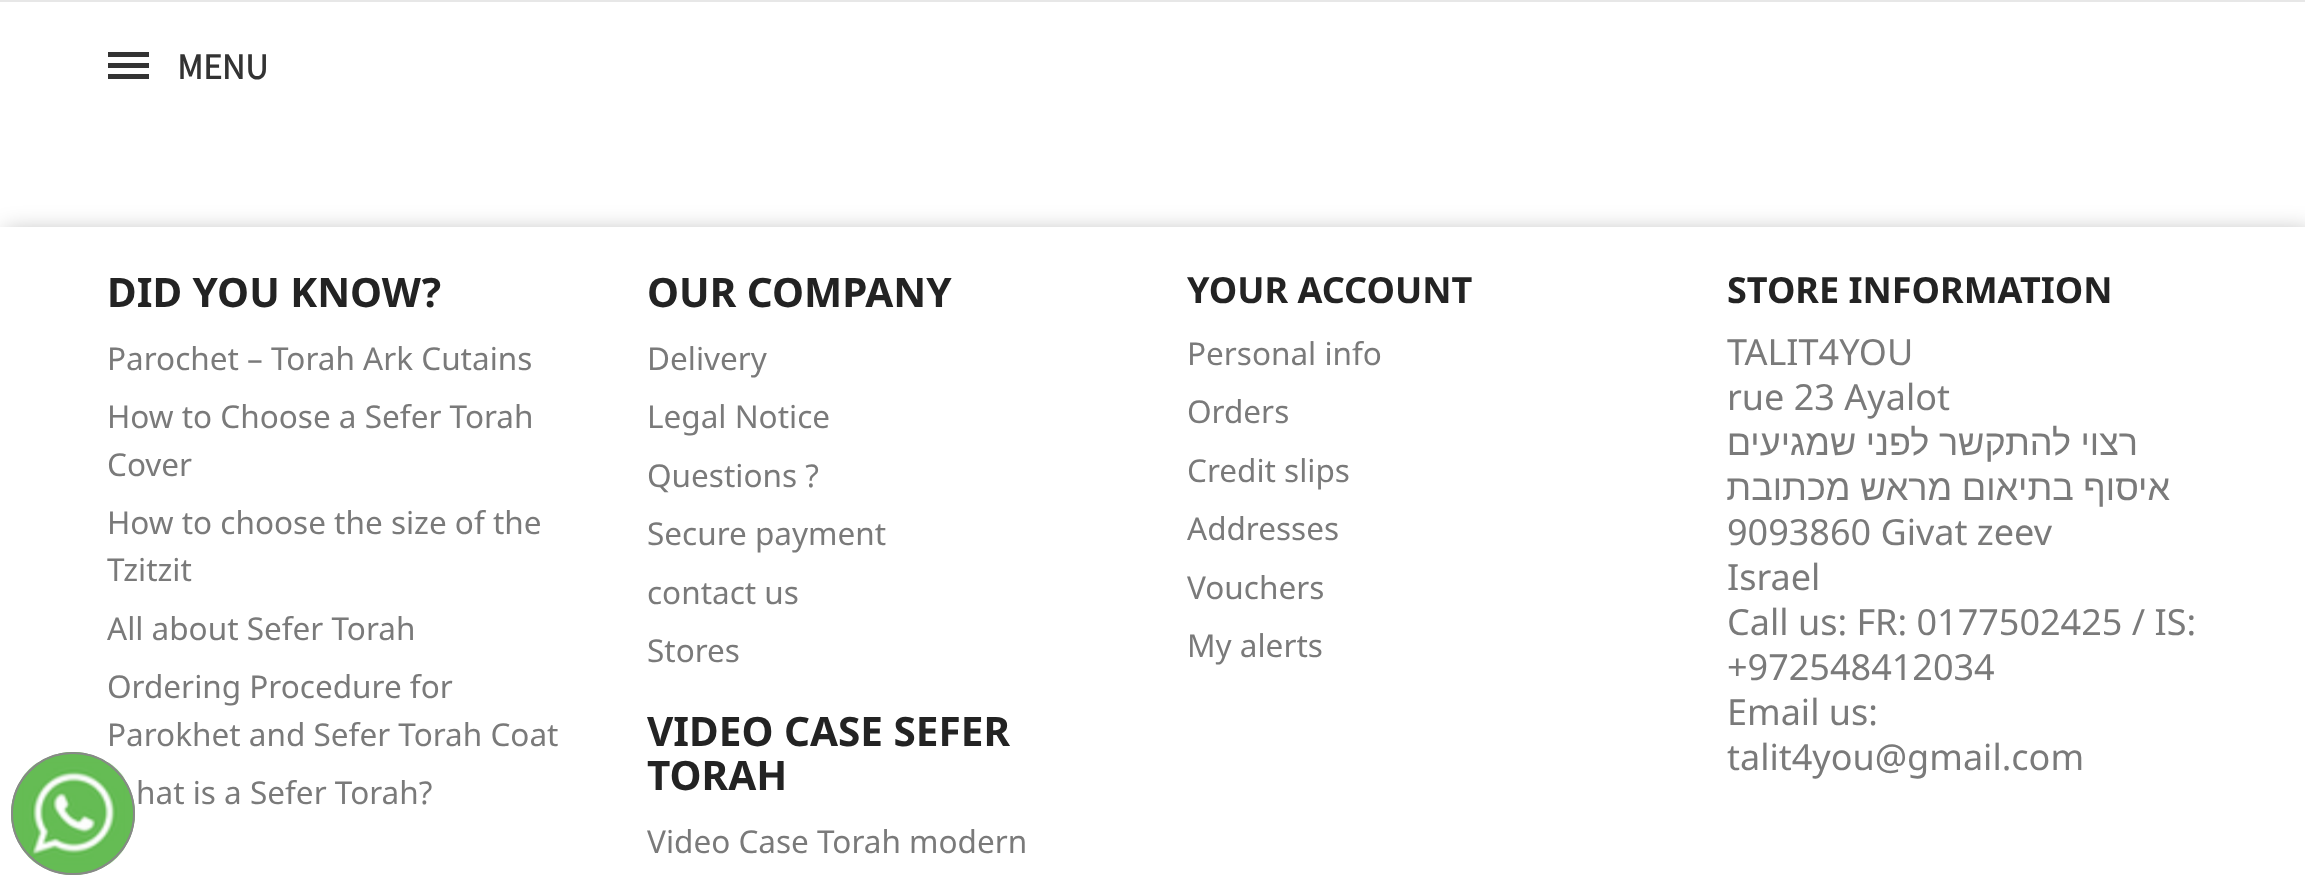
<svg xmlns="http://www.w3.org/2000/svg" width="2305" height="885">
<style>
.a{font:bold 36px Assistant;fill:#333}
.b{font:bold 40.5px Noto Sans;fill:#232323}
.c{font:31.5px Noto Sans;fill:#7a7a7a}
.d{font:bold 36px Noto Sans;fill:#232323}
.e{font:36px Noto Sans;fill:#7a7a7a}
.f{font:36px Liberation Sans;direction:rtl;fill:#7a7a7a}
</style>
<defs>
<clipPath id="clip1"><path d="M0 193h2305v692h-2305zm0 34h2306v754h-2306z" clip-rule="evenodd"/></clipPath>
</defs>
<rect width="100%" height="100%" fill="#fff"/>
<path fill="#e7e7e7" d="M0 0h2305v2H0z"/>
<path fill="#333" d="M108 52h41v5H108z"/>
<path fill="#333" d="M108 63h41v5H108z"/>
<path fill="#333" d="M108 74h41v5H108z"/>
<g clip-path="url(#clip1)">
<path fill="#0000004d" filter="blur(12.5px)" d="M5 232h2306v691H5z"/>
</g>
<rect fill="#65bc54" x="11" y="752" width="124" height="123" rx="61.5"/>
<image href="1.png" x="22" y="762" width="103" height="103"/>
<rect fill="none" stroke="#888" stroke-width="2" x="12" y="753" width="122" height="121" rx="60.5"/>
<text class="a" x="177" y="79">MENU</text>
<text class="b" x="107" y="307">DID YOU KNOW?</text>
<text class="c" x="107" y="370">Parochet – Torah Ark Cutains</text>
<text class="c" x="107" y="428">How to Choose a Sefer Torah</text>
<text class="c" x="107" y="476">Cover</text>
<text class="c" x="107" y="534">How to choose the size of the</text>
<text class="c" x="107" y="581">Tzitzit</text>
<text class="c" x="107" y="640">All about Sefer Torah</text>
<text class="c" x="107" y="698">Ordering Procedure for</text>
<text class="c" x="107" y="746">Parokhet and Sefer Torah Coat</text>
<text class="c" x="136" y="804">hat is a Sefer Torah?</text>
<text class="b" x="647" y="307">OUR COMPANY</text>
<text class="c" x="647" y="370">Delivery</text>
<text class="c" x="647" y="428">Legal Notice</text>
<text class="c" x="647" y="487">Questions ?</text>
<text class="c" x="647" y="545">Secure payment</text>
<text class="c" x="647" y="604">contact us</text>
<text class="c" x="647" y="662">Stores</text>
<text class="b" x="647" y="746">VIDEO CASE SEFER</text>
<text class="b" x="647" y="790">TORAH</text>
<text class="c" x="647" y="853">Video Case Torah modern</text>
<text class="d" x="1187" y="303">YOUR ACCOUNT</text>
<text class="c" x="1187" y="365">Personal info</text>
<text class="c" x="1187" y="423">Orders</text>
<text class="c" x="1187" y="482">Credit slips</text>
<text class="c" x="1187" y="540">Addresses</text>
<text class="c" x="1187" y="599">Vouchers</text>
<text class="c" x="1187" y="657">My alerts</text>
<text class="d" x="1727" y="303">STORE INFORMATION</text>
<text class="e" x="1727" y="365">TALIT4YOU</text>
<text class="e" x="1727" y="410">rue 23 Ayalot</text>
<text class="f" x="2138" y="455" word-spacing="-0.5">רצוי להתקשר לפני שמגיעים</text>
<text class="f" x="2170" y="500" word-spacing="-0.5">איסוף בתיאום מראש מכתובת</text>
<text class="e" x="1727" y="545">9093860 Givat zeev</text>
<text class="e" x="1727" y="590">Israel</text>
<text class="e" x="1727" y="635">Call us: FR: 0177502425 / IS:</text>
<text class="e" x="1727" y="680">+972548412034</text>
<text class="e" x="1727" y="725">Email us:</text>
<text class="e" x="1727" y="770">talit4you@gmail.com</text>
</svg>
